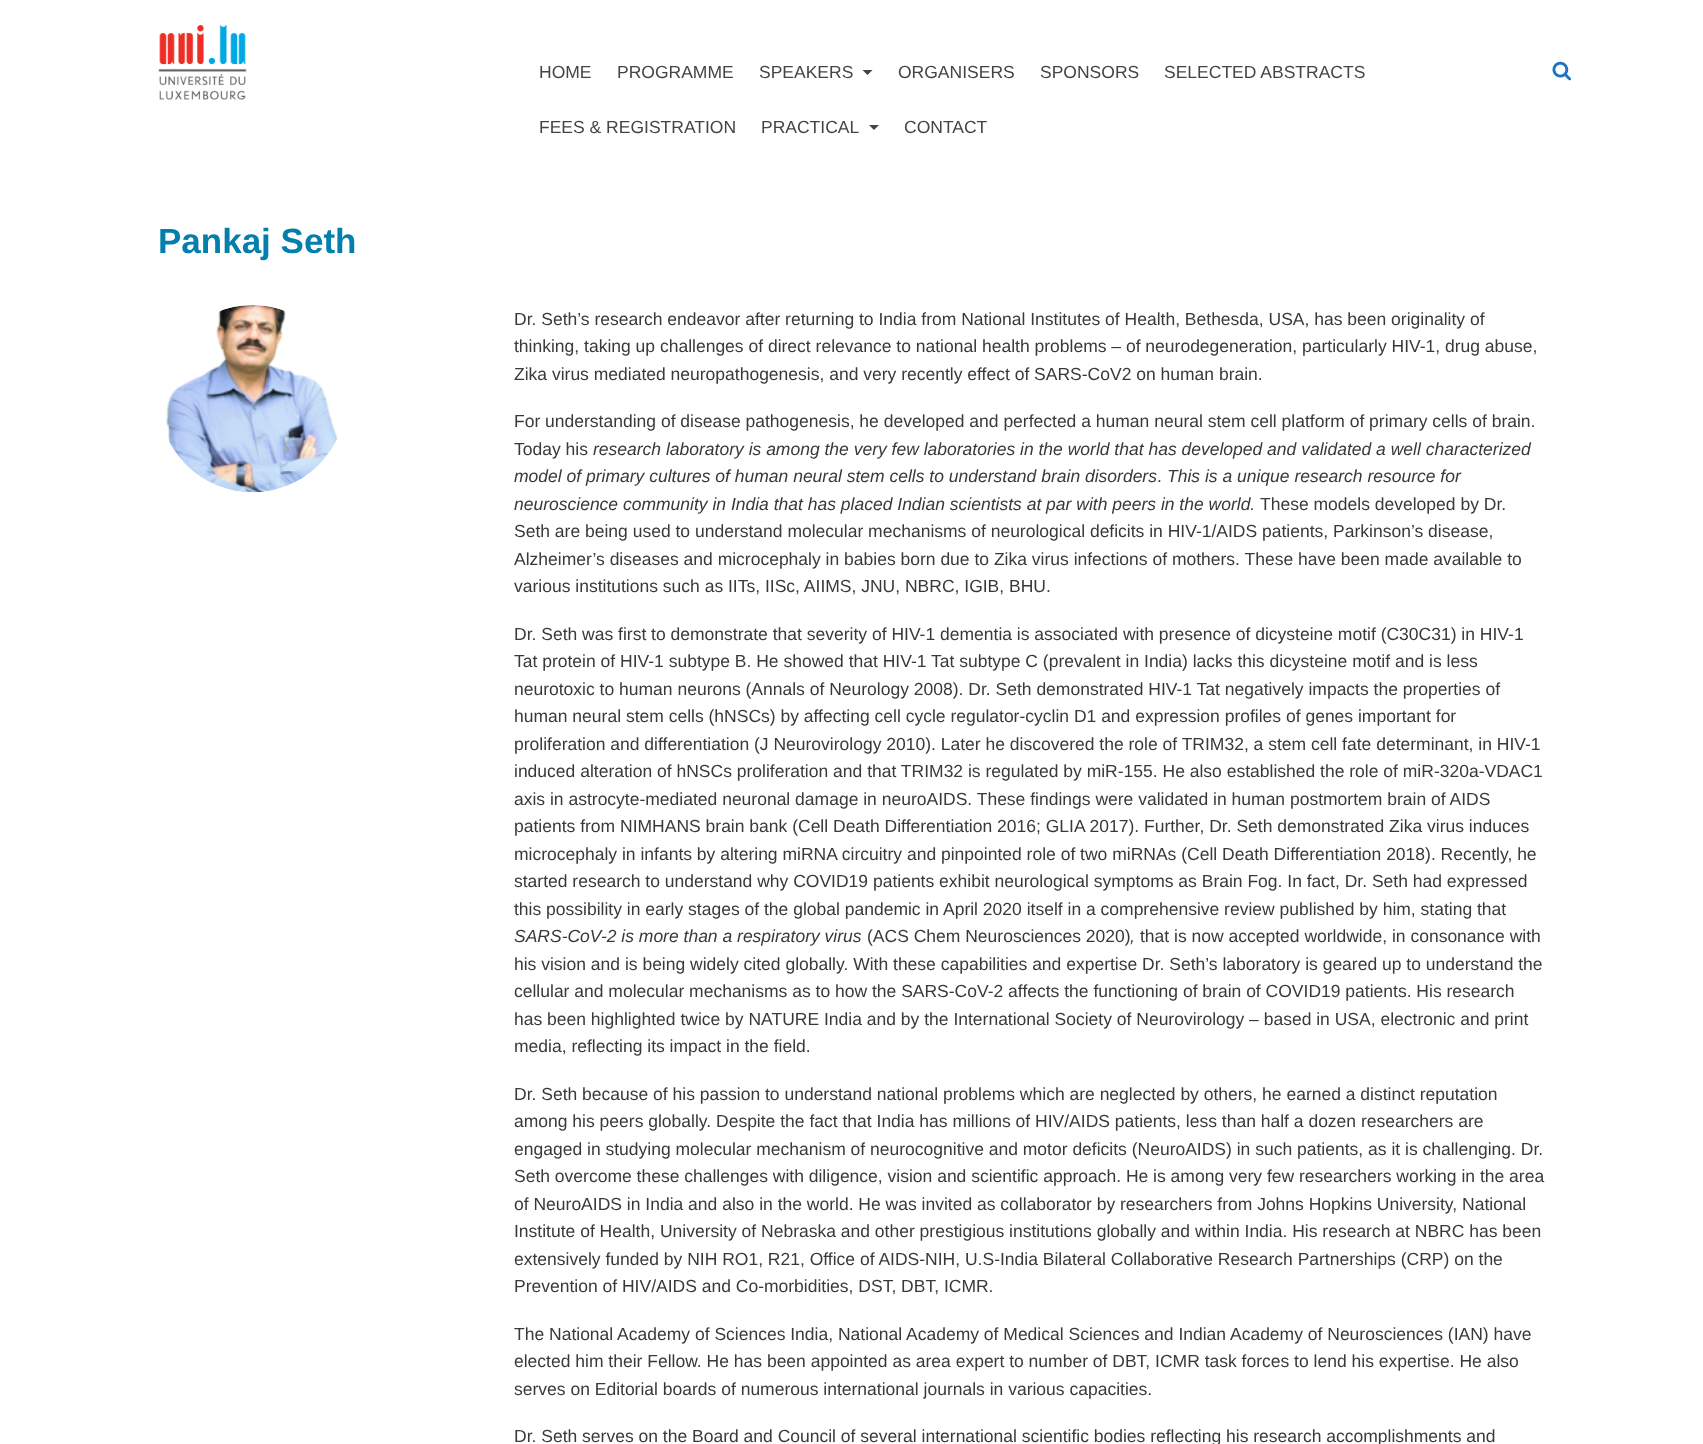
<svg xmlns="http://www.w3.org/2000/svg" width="1703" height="1444">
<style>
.a{font:17.5px Liberation Sans;fill:#444}
.b{font:bold 35px Liberation Sans;fill:#037fac}
.c{font:17.5px Liberation Sans;fill:#373a3c}
.d{font:italic 17.5px Liberation Sans;fill:#373a3c}
</style>
<rect width="100%" height="100%" fill="#fff"/>
<image href="1.png" x="158" y="25" width="89" height="75"/>
<path fill="#444" d="M862.5 70h10l-5 5z"/>
<path fill="#444" d="M869 125h10l-5 5z"/>
<image href="2.png" x="1552" y="61" width="19" height="20"/>
<image href="3.png" x="166" y="305" width="172" height="188"/>
<text class="a" x="539" y="78">HOME</text>
<text class="a" x="617" y="78">PROGRAMME</text>
<text class="a" x="759" y="78">SPEAKERS</text>
<text class="a" x="898" y="78">ORGANISERS</text>
<text class="a" x="1040" y="78">SPONSORS</text>
<text class="a" x="1164" y="78">SELECTED ABSTRACTS</text>
<text class="a" x="539" y="133">FEES &amp; REGISTRATION</text>
<text class="a" x="761" y="133">PRACTICAL</text>
<text class="a" x="904" y="133">CONTACT</text>
<text class="b" x="158" y="253">Pankaj Seth</text>
<text class="c" x="514" y="325">Dr. Seth’s research endeavor after returning to India from National Institutes of Health, Bethesda, USA, has been originality of</text>
<text class="c" x="514" y="352">thinking, taking up challenges of direct relevance to national health problems – of neurodegeneration, particularly HIV-1, drug abuse,</text>
<text class="c" x="514" y="380">Zika virus mediated neuropathogenesis, and very recently effect of SARS-CoV2 on human brain.</text>
<text class="c" x="514" y="427">For understanding of disease pathogenesis, he developed and perfected a human neural stem cell platform of primary cells of brain.</text>
<text class="c" x="514" y="455">Today his</text>
<text class="d" x="593" y="455">research laboratory is among the very few laboratories in the world that has developed and validated a well characterized</text>
<text class="d" x="514" y="482">model of primary cultures of human neural stem cells to understand brain disorders</text>
<text class="c" x="1157" y="482">.</text>
<text class="d" x="1167" y="482">This is a unique research resource for</text>
<text class="d" x="514" y="510">neuroscience community in India that has placed Indian scientists at par with peers in the world.</text>
<text class="c" x="1260" y="510">These models developed by Dr.</text>
<text class="c" x="514" y="537">Seth are being used to understand molecular mechanisms of neurological deficits in HIV-1/AIDS patients, Parkinson’s disease,</text>
<text class="c" x="514" y="565">Alzheimer’s diseases and microcephaly in babies born due to Zika virus infections of mothers. These have been made available to</text>
<text class="c" x="514" y="592">various institutions such as IITs, IISc, AIIMS, JNU, NBRC, IGIB, BHU.</text>
<text class="c" x="514" y="640">Dr. Seth was first to demonstrate that severity of HIV-1 dementia is associated with presence of dicysteine motif (C30C31) in HIV-1</text>
<text class="c" x="514" y="667">Tat protein of HIV-1 subtype B. He showed that HIV-1 Tat subtype C (prevalent in India) lacks this dicysteine motif and is less</text>
<text class="c" x="514" y="695">neurotoxic to human neurons (Annals of Neurology 2008). Dr. Seth demonstrated HIV-1 Tat negatively impacts the properties of</text>
<text class="c" x="514" y="722">human neural stem cells (hNSCs) by affecting cell cycle regulator-cyclin D1 and expression profiles of genes important for</text>
<text class="c" x="514" y="750">proliferation and differentiation (J Neurovirology 2010). Later he discovered the role of TRIM32, a stem cell fate determinant, in HIV-1</text>
<text class="c" x="514" y="777">induced alteration of hNSCs proliferation and that TRIM32 is regulated by miR-155. He also established the role of miR-320a-VDAC1</text>
<text class="c" x="514" y="805">axis in astrocyte-mediated neuronal damage in neuroAIDS. These findings were validated in human postmortem brain of AIDS</text>
<text class="c" x="514" y="832">patients from NIMHANS brain bank (Cell Death Differentiation 2016; GLIA 2017). Further, Dr. Seth demonstrated Zika virus induces</text>
<text class="c" x="514" y="860">microcephaly in infants by altering miRNA circuitry and pinpointed role of two miRNAs (Cell Death Differentiation 2018). Recently, he</text>
<text class="c" x="514" y="887">started research to understand why COVID19 patients exhibit neurological symptoms as Brain Fog. In fact, Dr. Seth had expressed</text>
<text class="c" x="514" y="915">this possibility in early stages of the global pandemic in April 2020 itself in a comprehensive review published by him, stating that</text>
<text class="d" x="514" y="942">SARS-CoV-2 is more than a respiratory virus</text>
<text class="c" x="867" y="942">(ACS Chem Neurosciences 2020)</text>
<text class="d" x="1130" y="942">,</text>
<text class="c" x="1140" y="942">that is now accepted worldwide, in consonance with</text>
<text class="c" x="514" y="970">his vision and is being widely cited globally. With these capabilities and expertise Dr. Seth’s laboratory is geared up to understand the</text>
<text class="c" x="514" y="997">cellular and molecular mechanisms as to how the SARS-CoV-2 affects the functioning of brain of COVID19 patients. His research</text>
<text class="c" x="514" y="1025">has been highlighted twice by NATURE India and by the International Society of Neurovirology – based in USA, electronic and print</text>
<text class="c" x="514" y="1052">media, reflecting its impact in the field.</text>
<text class="c" x="514" y="1100">Dr. Seth because of his passion to understand national problems which are neglected by others, he earned a distinct reputation</text>
<text class="c" x="514" y="1127">among his peers globally. Despite the fact that India has millions of HIV/AIDS patients, less than half a dozen researchers are</text>
<text class="c" x="514" y="1155">engaged in studying molecular mechanism of neurocognitive and motor deficits (NeuroAIDS) in such patients, as it is challenging. Dr.</text>
<text class="c" x="514" y="1182">Seth overcome these challenges with diligence, vision and scientific approach. He is among very few researchers working in the area</text>
<text class="c" x="514" y="1210">of NeuroAIDS in India and also in the world. He was invited as collaborator by researchers from Johns Hopkins University, National</text>
<text class="c" x="514" y="1237">Institute of Health, University of Nebraska and other prestigious institutions globally and within India. His research at NBRC has been</text>
<text class="c" x="514" y="1265">extensively funded by NIH RO1, R21, Office of AIDS-NIH, U.S-India Bilateral Collaborative Research Partnerships (CRP) on the</text>
<text class="c" x="514" y="1292">Prevention of HIV/AIDS and Co-morbidities, DST, DBT, ICMR.</text>
<text class="c" x="514" y="1340">The National Academy of Sciences India, National Academy of Medical Sciences and Indian Academy of Neurosciences (IAN) have</text>
<text class="c" x="514" y="1367">elected him their Fellow. He has been appointed as area expert to number of DBT, ICMR task forces to lend his expertise. He also</text>
<text class="c" x="514" y="1395">serves on Editorial boards of numerous international journals in various capacities.</text>
<text class="c" x="514" y="1442">Dr. Seth serves on the Board and Council of several international scientific bodies reflecting his research accomplishments and</text>
</svg>
